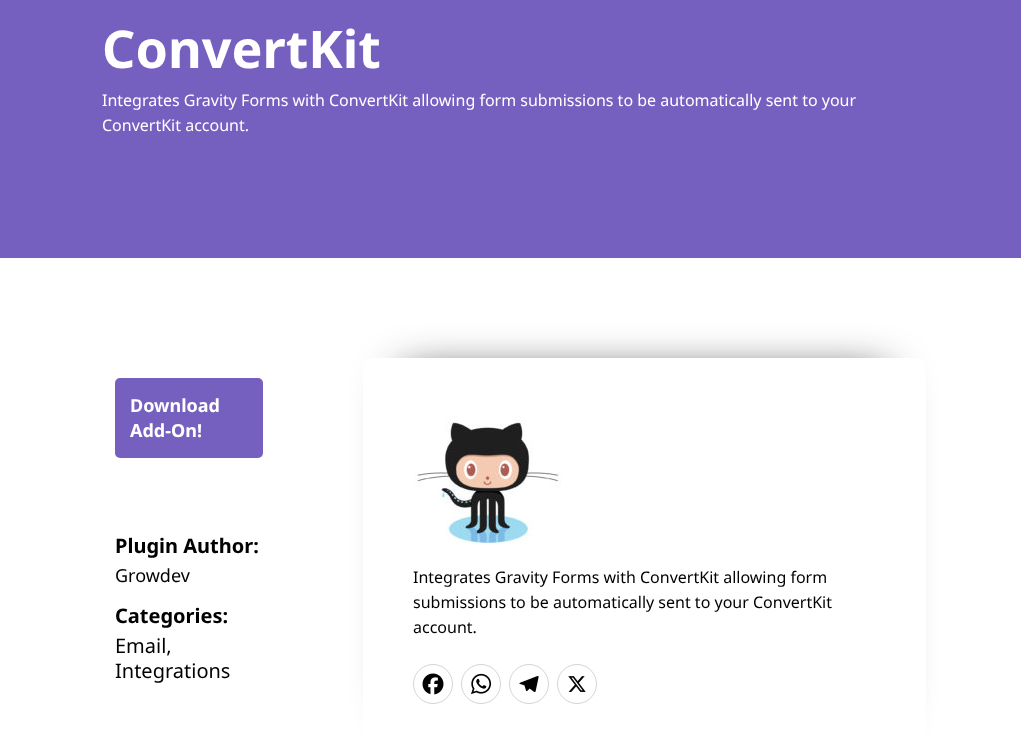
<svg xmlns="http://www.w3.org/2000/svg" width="1021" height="755">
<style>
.a{font:bold 52px Noto Sans;fill:#fff}
.b{font:16px Noto Sans;fill:#fff}
.c{font:bold 18px Noto Sans;fill:#fff}
.d{font:bold 20px Noto Sans;fill:#000}
.e{font:18px Noto Sans;fill:#000}
.f{font:20px Noto Sans;fill:#000}
.g{font:16px Noto Sans;fill:#000}
</style>
<defs>
<clipPath id="clip1"><path d="M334 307h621v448h-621zm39 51h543c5.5 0 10 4.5 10 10v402h-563v-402c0-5.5 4.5-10 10-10z" clip-rule="evenodd"/></clipPath>
</defs>
<rect width="100%" height="100%" fill="#fff"/>
<path fill="#755fbf" d="M0 0h1021v258H0z"/>
<rect fill="#755fbf" x="115" y="378" width="148" height="80" rx="5"/>
<g clip-path="url(#clip1)">
<path fill="#111" filter="blur(22.5px)" d="M403 376h483v332H403z"/>
</g>
<image href="1.png" x="414" y="416" width="147" height="128"/>
<circle fill="none" stroke="#d2d5db" cx="433" cy="684" r="19.5"/>
<image href="2.png" x="422" y="673" width="22" height="22"/>
<circle fill="none" stroke="#d2d5db" cx="481" cy="684" r="19.5"/>
<image href="3.png" x="471" y="673" width="21" height="22"/>
<circle fill="none" stroke="#d2d5db" cx="529" cy="684" r="19.5"/>
<image href="4.png" x="519" y="676" width="20" height="16"/>
<circle fill="none" stroke="#d2d5db" cx="577" cy="684" r="19.5"/>
<image href="5.png" x="568" y="676" width="18" height="16"/>
<text class="a" x="102" y="68">ConvertKit</text>
<text class="b" x="102" y="106">Integrates Gravity Forms with ConvertKit allowing form submissions to be automatically sent to your</text>
<text class="b" x="102" y="131">ConvertKit account.</text>
<text class="c" x="130" y="412">Download</text>
<text class="c" x="130" y="437">Add-On!</text>
<text class="d" x="115" y="553">Plugin Author:</text>
<text class="e" x="115" y="582">Growdev</text>
<text class="d" x="115" y="623">Categories:</text>
<text class="f" x="115" y="653">Email,</text>
<text class="f" x="115" y="678">Integrations</text>
<text class="g" x="413" y="583">Integrates Gravity Forms with ConvertKit allowing form</text>
<text class="g" x="413" y="608">submissions to be automatically sent to your ConvertKit</text>
<text class="g" x="413" y="633">account.</text>
</svg>
